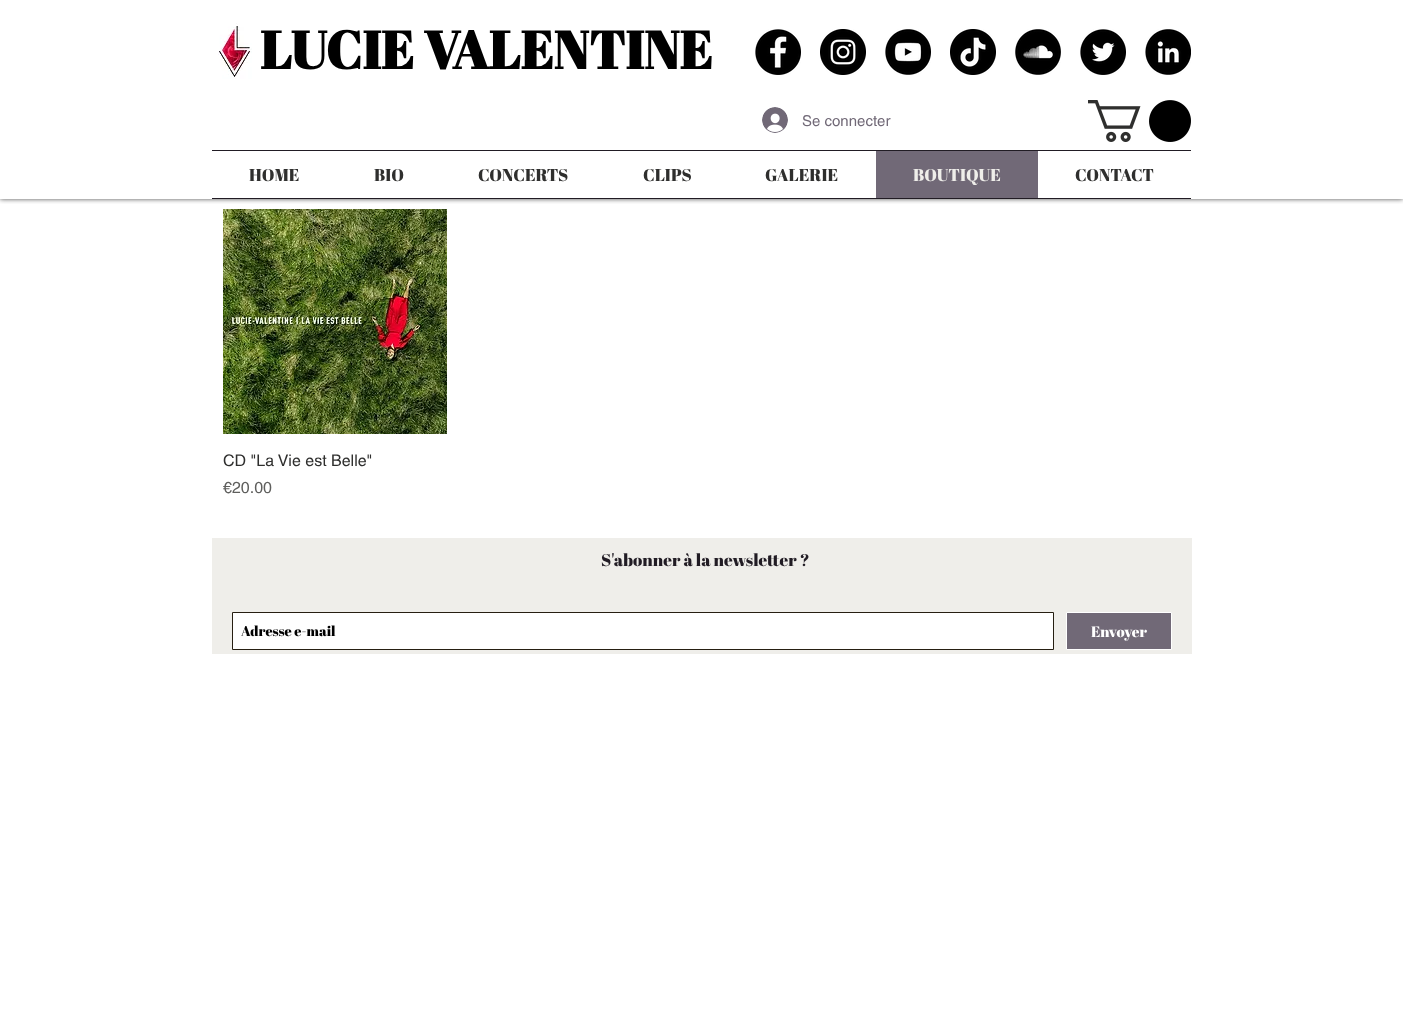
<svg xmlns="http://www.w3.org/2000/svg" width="1403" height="1018">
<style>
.a{font:bold 53px Abril Fatface;fill:#000}
.b{font:15px helvetica;fill:#716977}
.c{font:17px Abril Fatface;fill:#2f2f2e}
.d{font:17px Abril Fatface;fill:#efeeea}
.e{font:16px helvetica;fill:#2f2f2e}
.f{font:16px helvetica;fill:#5f5f5d}
.g{font:17px Abril Fatface;fill:#211c24}
.h{font:14px Abril Fatface;fill:#000}
.i{font:15px Abril Fatface;fill:#fff}
</style>
<defs>
<clipPath id="clip1"><path d="M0 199h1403v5H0z"/></clipPath>
</defs>
<rect width="100%" height="100%" fill="#fff"/>
<g clip-path="url(#clip1)">
<path fill="#000000b3" filter="blur(2.5px)" d="M0 0h1403v199H0z"/>
</g>
<image href="1.png" x="218" y="23" width="34" height="56"/>
<image href="2.png" x="755" y="29" width="46" height="46"/>
<image href="3.png" x="820" y="29" width="46" height="46"/>
<image href="4.png" x="885" y="29" width="46" height="46"/>
<image href="5.png" x="950" y="29" width="46" height="46"/>
<image href="6.png" x="1015" y="29" width="46" height="46"/>
<image href="7.png" x="1080" y="29" width="46" height="46"/>
<image href="8.png" x="1145" y="29" width="46" height="46"/>
<image href="9.png" x="762" y="107" width="26" height="26"/>
<image href="10.png" x="1088" y="100" width="103" height="42"/>
<path fill="#211c24" d="M212 150h979v1H212z"/>
<path fill="#211c24" d="M212 198h979v1H212z"/>
<path fill="#716977" d="M876 151h162v47H876z"/>
<image href="11.png" x="223" y="209" width="224" height="225"/>
<path fill="#efeeea" d="M212 538h980v116H212z"/>
<path fill="#fff" stroke="#261f12" d="M232.5 612.5h821v37H232.5z"/>
<path fill="#716977" stroke="#fff" d="M1066.5 612.5h105v37H1066.5z"/>
<text class="a" x="260" y="69">LUCIE VALENTINE</text>
<text class="b" x="802" y="126">Se connecter</text>
<text class="c" x="249" y="181">HOME</text>
<text class="c" x="374" y="181">BIO</text>
<text class="c" x="478" y="181">CONCERTS</text>
<text class="c" x="643" y="181">CLIPS</text>
<text class="c" x="765" y="181">GALERIE</text>
<text class="d" x="913" y="181">BOUTIQUE</text>
<text class="c" x="1075" y="181">CONTACT</text>
<text class="e" x="223" y="466">CD "La Vie est Belle"</text>
<text class="f" x="223" y="493">€20.00</text>
<text class="g" x="601" y="566">S'abonner à la newsletter ?</text>
<text class="h" x="241" y="636">Adresse e-mail</text>
<text class="i" x="1091" y="637">Envoyer</text>
</svg>
